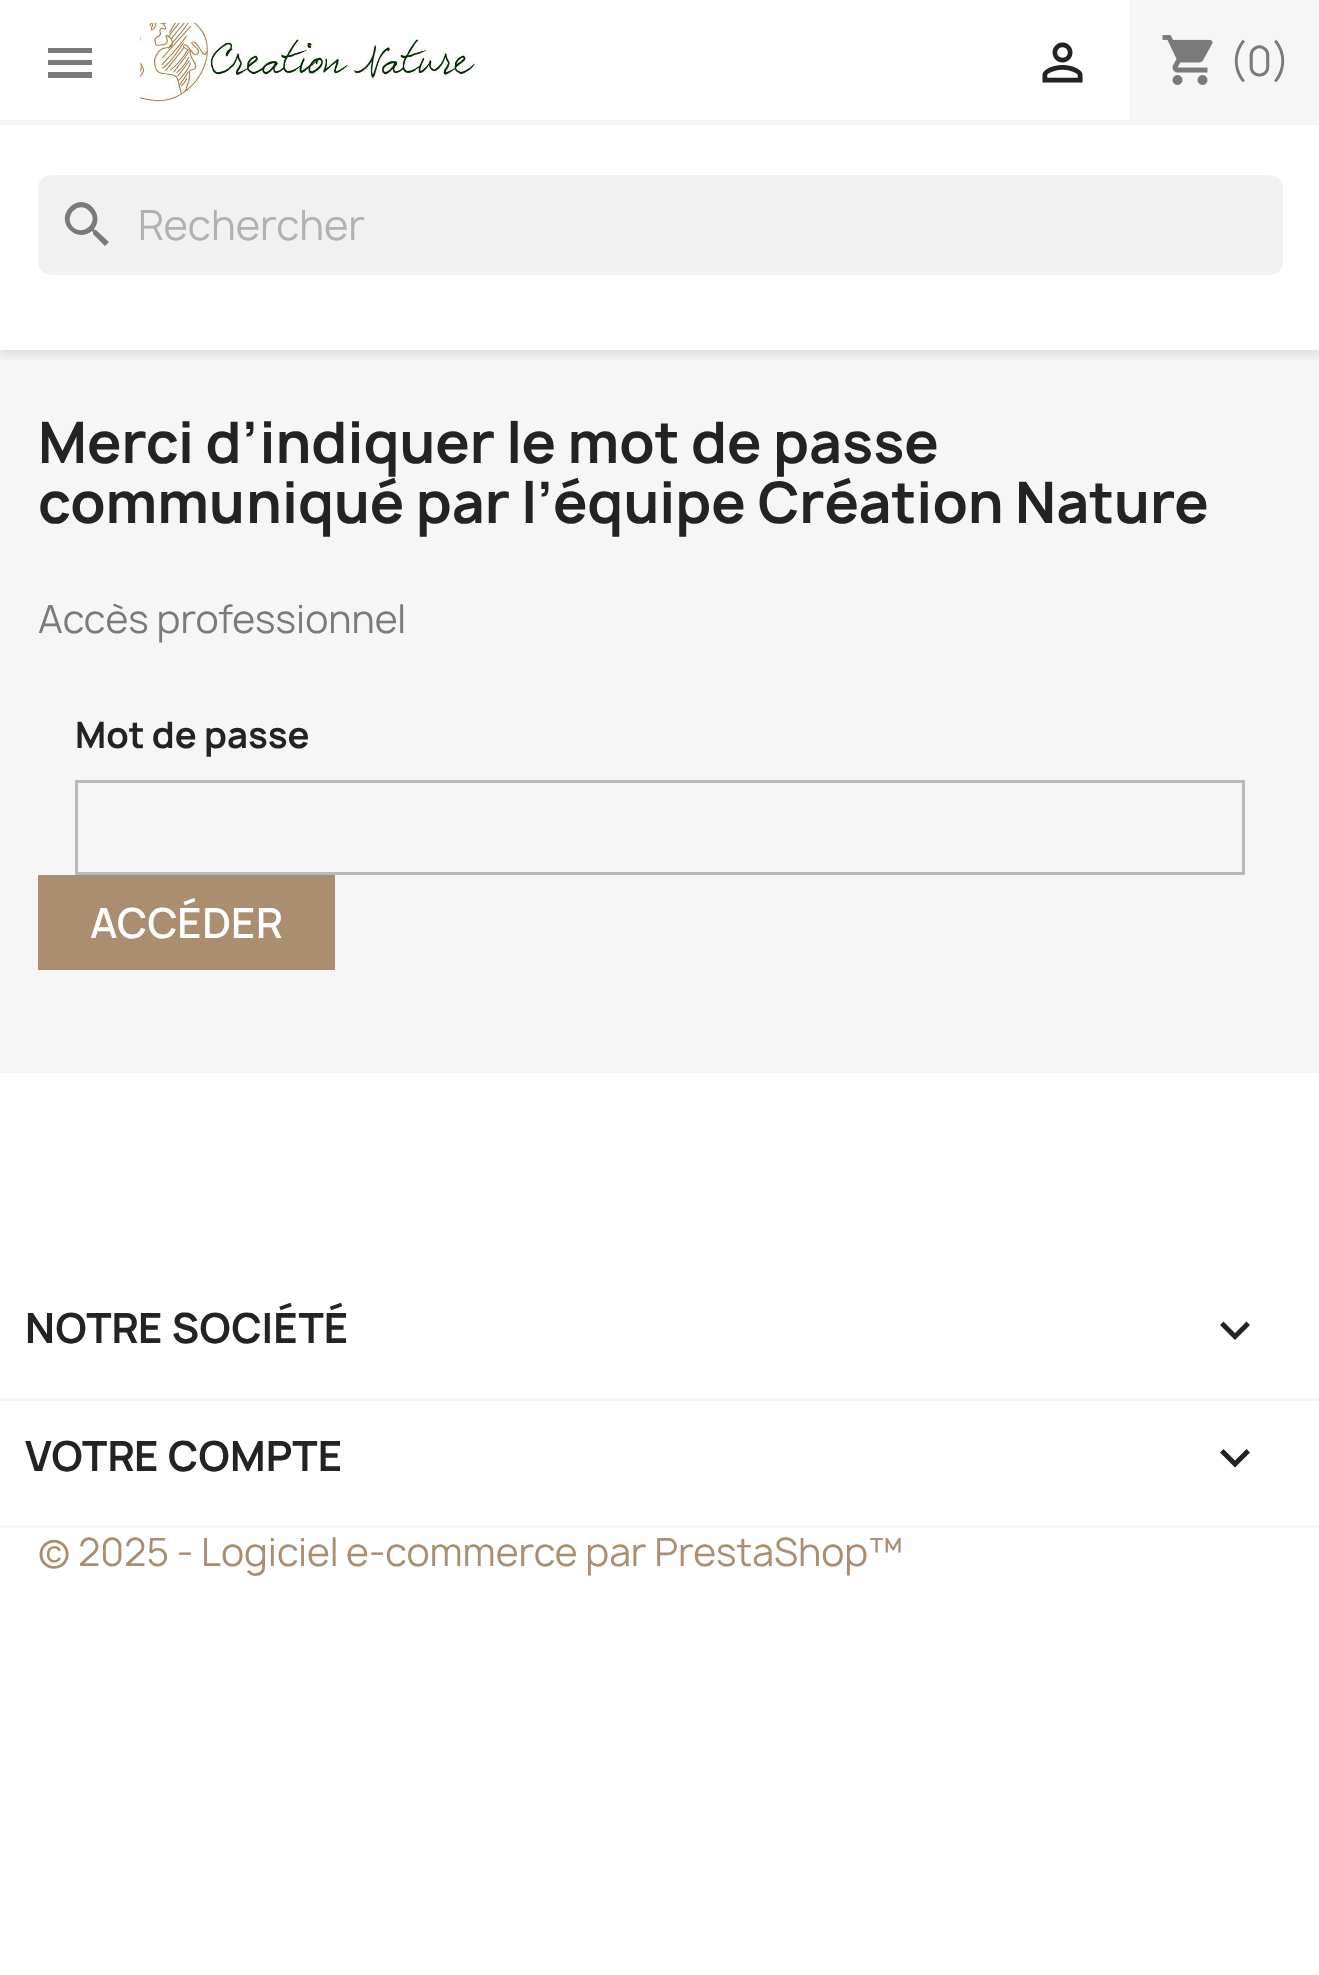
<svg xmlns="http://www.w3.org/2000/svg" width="1319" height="1975">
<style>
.a{font:40px Manrope;fill:#7a7a7a}
.b{font:40px Manrope;fill:#b1b1b1}
.c{font:bold 55px Manrope;fill:#232323}
.d{font:37.5px Manrope;fill:#7a7a7a}
.e{font:bold 35px Manrope;fill:#232323}
.f{font:600 40px Manrope;fill:#fff}
.g{font:bold 40px Manrope;fill:#232323}
.h{font:37.5px Manrope;fill:#ab8e6f}
</style>
<defs>
<clipPath id="clip1"><path d="M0 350h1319v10H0z"/></clipPath>
</defs>
<rect width="100%" height="100%" fill="#fff"/>
<path fill="#f6f6f6" d="M0 350h1319v723H0z"/>
<g clip-path="url(#clip1)">
<path fill="#0000001c" filter="blur(6px)" d="M0 5h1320v350H0z"/>
</g>
<path fill="#f6f6f6" d="M0 120h1319v5H0z"/>
<path fill="#7a7a7a" d="M48 48h44v5h-44zm0 17v-5h44v5zm0 13v-6h44v6z"/>
<image href="1.png" x="140" y="22" width="335" height="81"/>
<image href="2.png" x="1042" y="42" width="41" height="41"/>
<path fill="#f6f6f6" d="M1130 0h189v120H1130z"/>
<image href="3.png" x="1162" y="35" width="51" height="50"/>
<rect fill="#f1f1f1" x="38" y="175" width="1245" height="100" rx="13"/>
<path fill="#7a7a7a" d="M73 227c11 10 27-6 16-16c-10-11-26 5-16 16zm23 3l13 12l-4 4l-12-12v-2l-1-1c-16 13-37-9-22-24c15-15 36 7 24 22v1z"/>
<path fill="none" stroke="#b9b9b9" stroke-width="3" d="M76.5 781.5h1167v92H76.5z"/>
<path fill="#ab8e6f" d="M38 875h297v95H38z"/>
<path fill="#f6f6f6" d="M0 1398h1319v3H0z"/>
<path fill="#232323" d="M1223.5 1321.5l11.5 11.5l11.5-11.5l3.5 3.5l-15 15l-15-15z"/>
<path fill="#f6f6f6" d="M0 1525h1319v3H0z"/>
<path fill="#232323" d="M1223.5 1449l11.5 11.5l11.5-11.5l3.5 3.5l-15 15l-15-15z"/>
<text class="a" x="1229" y="76">(0)</text>
<text class="b" x="138" y="240">Rechercher</text>
<text class="c" x="38" y="463">Merci d’indiquer le mot de passe</text>
<text class="c" x="38" y="523">communiqué par l’équipe Création Nature</text>
<text class="d" x="38" y="633">Accès professionnel</text>
<text class="e" x="75" y="748">Mot de passe</text>
<text class="f" x="90" y="938">ACCÉDER</text>
<text class="g" x="25" y="1343">NOTRE SOCIÉTÉ</text>
<text class="g" x="25" y="1471">VOTRE COMPTE</text>
<text class="h" x="38" y="1566">© 2025 - Logiciel e-commerce par PrestaShop™</text>
</svg>
